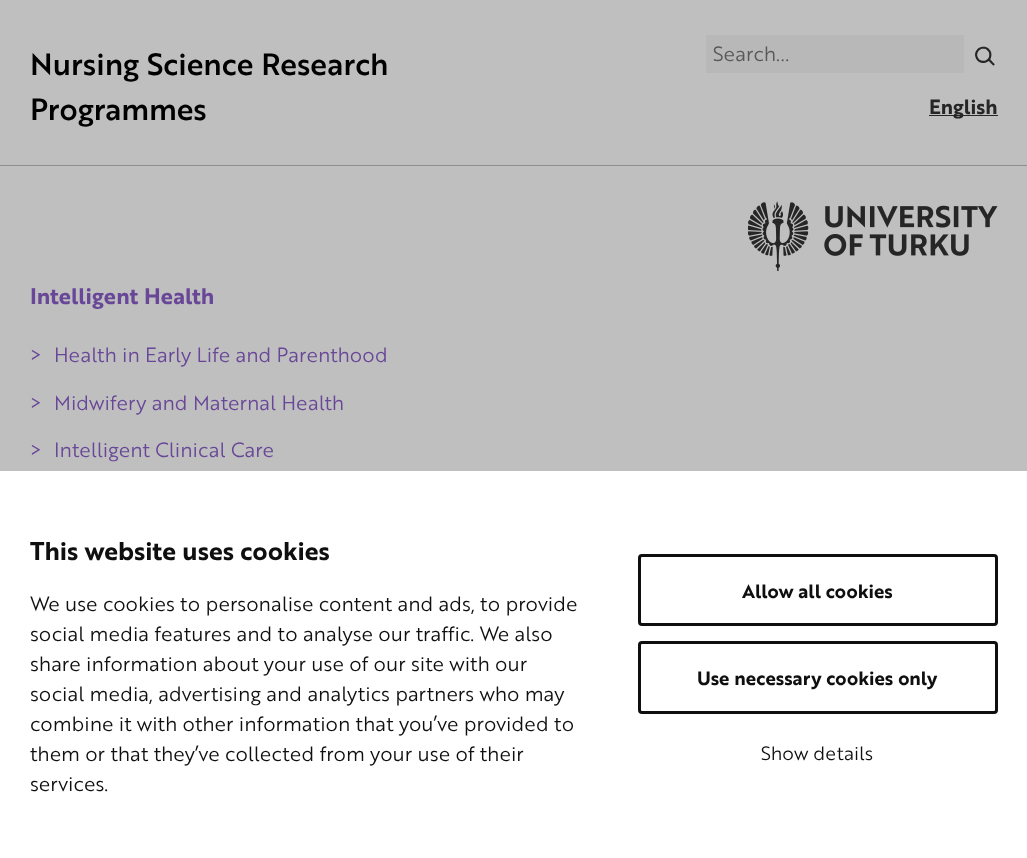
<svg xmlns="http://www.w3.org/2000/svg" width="1027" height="858">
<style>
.a{font:500 30px 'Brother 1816';fill:#000}
.b{font:20px 'Brother 1816';fill:#585858}
.c{font:bold 20px 'Brother 1816';fill:#262626}
.d{font:bold 22px 'Brother 1816';fill:#684698}
.e{font:20px 'Brother 1816';fill:#684698}
.f{font:bold 25px 'Brother 1816';fill:#0f0f0f}
.g{font:20px 'Brother 1816';fill:#0f0f0f}
.h{font:bold 18.75px 'Brother 1816';fill:#0f0f0f}
.i{font:18.75px 'Brother 1816';fill:#0f0f0f}
</style>
<rect width="100%" height="100%" fill="#bfbfbf"/>
<path fill="#8f8f8f" d="M0 165h1027v1H0z"/>
<path fill="#b8b8b8" d="M706 35h258v38H706z"/>
<image href="1.png" x="975" y="46" width="20" height="20"/>
<path fill="#262626" d="M929 115h69v1H929z"/>
<image href="2.png" x="748" y="201" width="250" height="70"/>
<path fill="#fff" d="M0 471h1027v387H0z"/>
<rect fill="none" stroke="#0f0f0f" stroke-width="3" x="639.5" y="555.5" width="357" height="69" rx="2.5"/>
<rect fill="none" stroke="#0f0f0f" stroke-width="3" x="639.5" y="642.5" width="357" height="70" rx="2.5"/>
<text class="a" x="30" y="75">Nursing Science Research</text>
<text class="a" x="30" y="120">Programmes</text>
<text class="b" x="713" y="61">Search...</text>
<text class="c" x="929" y="114">English</text>
<text class="d" x="30" y="304">Intelligent Health</text>
<text class="e" x="30" y="362">&gt;</text>
<text class="e" x="54" y="362">Health in Early Life and Parenthood</text>
<text class="e" x="30" y="410">&gt;</text>
<text class="e" x="54" y="410">Midwifery and Maternal Health</text>
<text class="e" x="30" y="457">&gt;</text>
<text class="e" x="54" y="457">Intelligent Clinical Care</text>
<text class="f" x="30" y="560">This website uses cookies</text>
<text class="g" x="30" y="611">We use cookies to personalise content and ads, to provide</text>
<text class="g" x="30" y="641">social media features and to analyse our traffic. We also</text>
<text class="g" x="30" y="671">share information about your use of our site with our</text>
<text class="g" x="30" y="701">social media, advertising and analytics partners who may</text>
<text class="g" x="30" y="731">combine it with other information that you’ve provided to</text>
<text class="g" x="30" y="761">them or that they’ve collected from your use of their</text>
<text class="g" x="30" y="791">services.</text>
<text class="h" x="742" y="598">Allow all cookies</text>
<text class="h" x="697" y="685">Use necessary cookies only</text>
<text class="i" x="761" y="760">Show details</text>
</svg>
